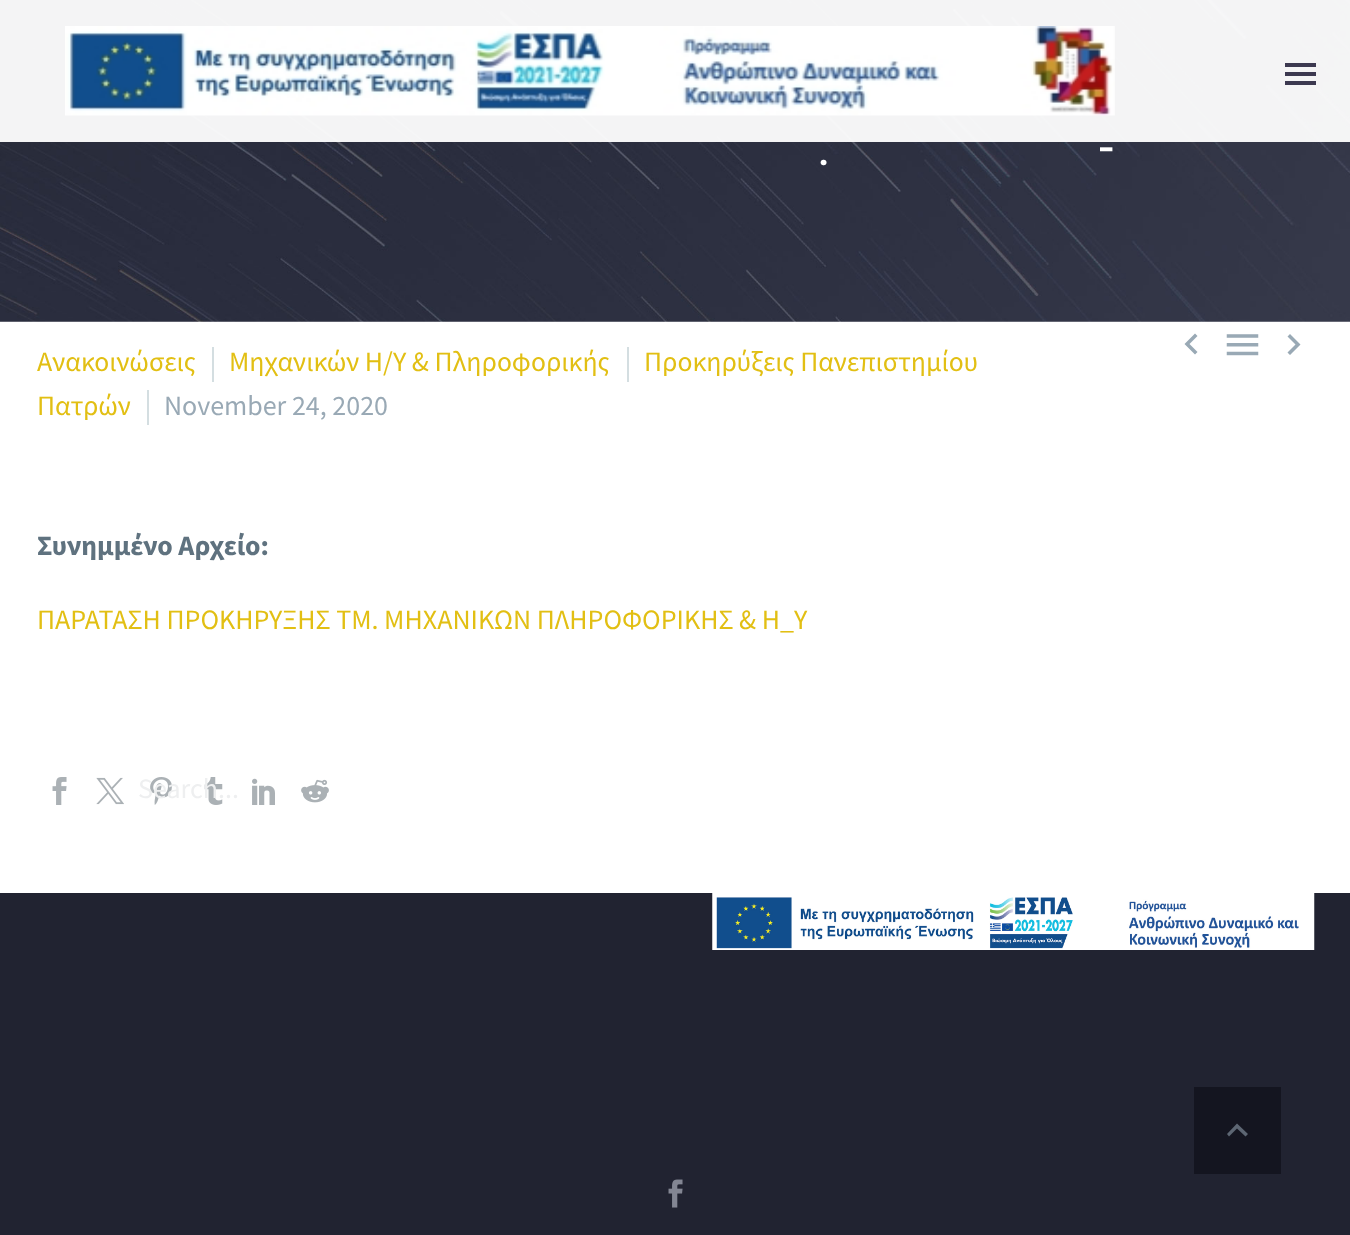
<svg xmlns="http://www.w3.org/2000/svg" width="1350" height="1235">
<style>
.a{font:52px Roboto;letter-spacing:3px;fill:#fff}
.b{font:28px Source Sans Pro;fill:#e2bf13}
.c{font:28px Source Sans Pro;fill:#99a9b5}
.d{font:bold 28px Source Sans Pro;fill:#5f727f}
.e{font:28px Source Sans Pro;fill:#eeeff0}
</style>
<rect width="100%" height="100%" fill="#fff"/>
<image href="1.png" x="0" y="0" width="1350" height="322"/>
<path fill="#99a9b5" d="M1197.5 352l-8-8l8-8l-2.5-2.5l-10.5 10.5l10.5 10.5z"/>
<image href="2.png" x="1226" y="334" width="33" height="22"/>
<path fill="#99a9b5" d="M1287.5 352.5l8-8l-8-8l2.5-2.5l10.5 10.5l-10.5 10.5z"/>
<path fill="#d4dee1" d="M212 347h2v35H212z"/>
<path fill="#d4dee1" d="M627 347h2v35H627z"/>
<path fill="#d4dee1" d="M147 390h2v35H147z"/>
<image href="3.png" x="52" y="777" width="15" height="28"/>
<image href="4.png" x="96" y="777" width="28" height="28"/>
<image href="5.png" x="150" y="777" width="22" height="28"/>
<image href="6.png" x="204" y="777" width="19" height="28"/>
<image href="7.png" x="252" y="778" width="23" height="27"/>
<image href="8.png" x="301" y="779" width="28" height="24"/>
<path fill="#fffffff2" d="M0 0h1350v142H0z"/>
<image href="9.png" x="65" y="26" width="1050" height="90"/>
<path fill="#3c3950" d="M1285 63h31v4H1285z"/>
<path fill="#3c3950" d="M1285 72h31v4H1285z"/>
<path fill="#3c3950" d="M1285 81h31v4H1285z"/>
<path fill="#212331" d="M0 893h1350v342H0z"/>
<image href="10.png" x="668" y="1179" width="15" height="29"/>
<image href="11.png" x="712" y="893" width="603" height="57"/>
<path fill="#141520" d="M1194 1087h87v87H1194z"/>
<path fill="#5d6673" d="M1229 1136.5l8-8l8.5 8l2.5-2.5l-11-10.5l-10 10.5z"/>
<text class="a" x="1099" y="165">-</text>
<text class="a" x="817" y="165">.</text>
<text class="b" x="37" y="371">Ανακοινώσεις</text>
<text class="b" x="229" y="371">Μηχανικών Η/Υ &amp; Πληροφορικής</text>
<text class="b" x="644" y="371">Προκηρύξεις Πανεπιστημίου</text>
<text class="b" x="37" y="415">Πατρών</text>
<text class="c" x="164" y="415">November 24, 2020</text>
<text class="d" x="37" y="555">Συνημμένο Αρχείο:</text>
<text class="b" x="37" y="629">ΠΑΡΑΤΑΣΗ ΠΡΟΚΗΡΥΞΗΣ ΤΜ. ΜΗΧΑΝΙΚΩΝ ΠΛΗΡΟΦΟΡΙΚΗΣ &amp; Η_Υ</text>
<text class="e" x="138" y="798">Search...</text>
</svg>
